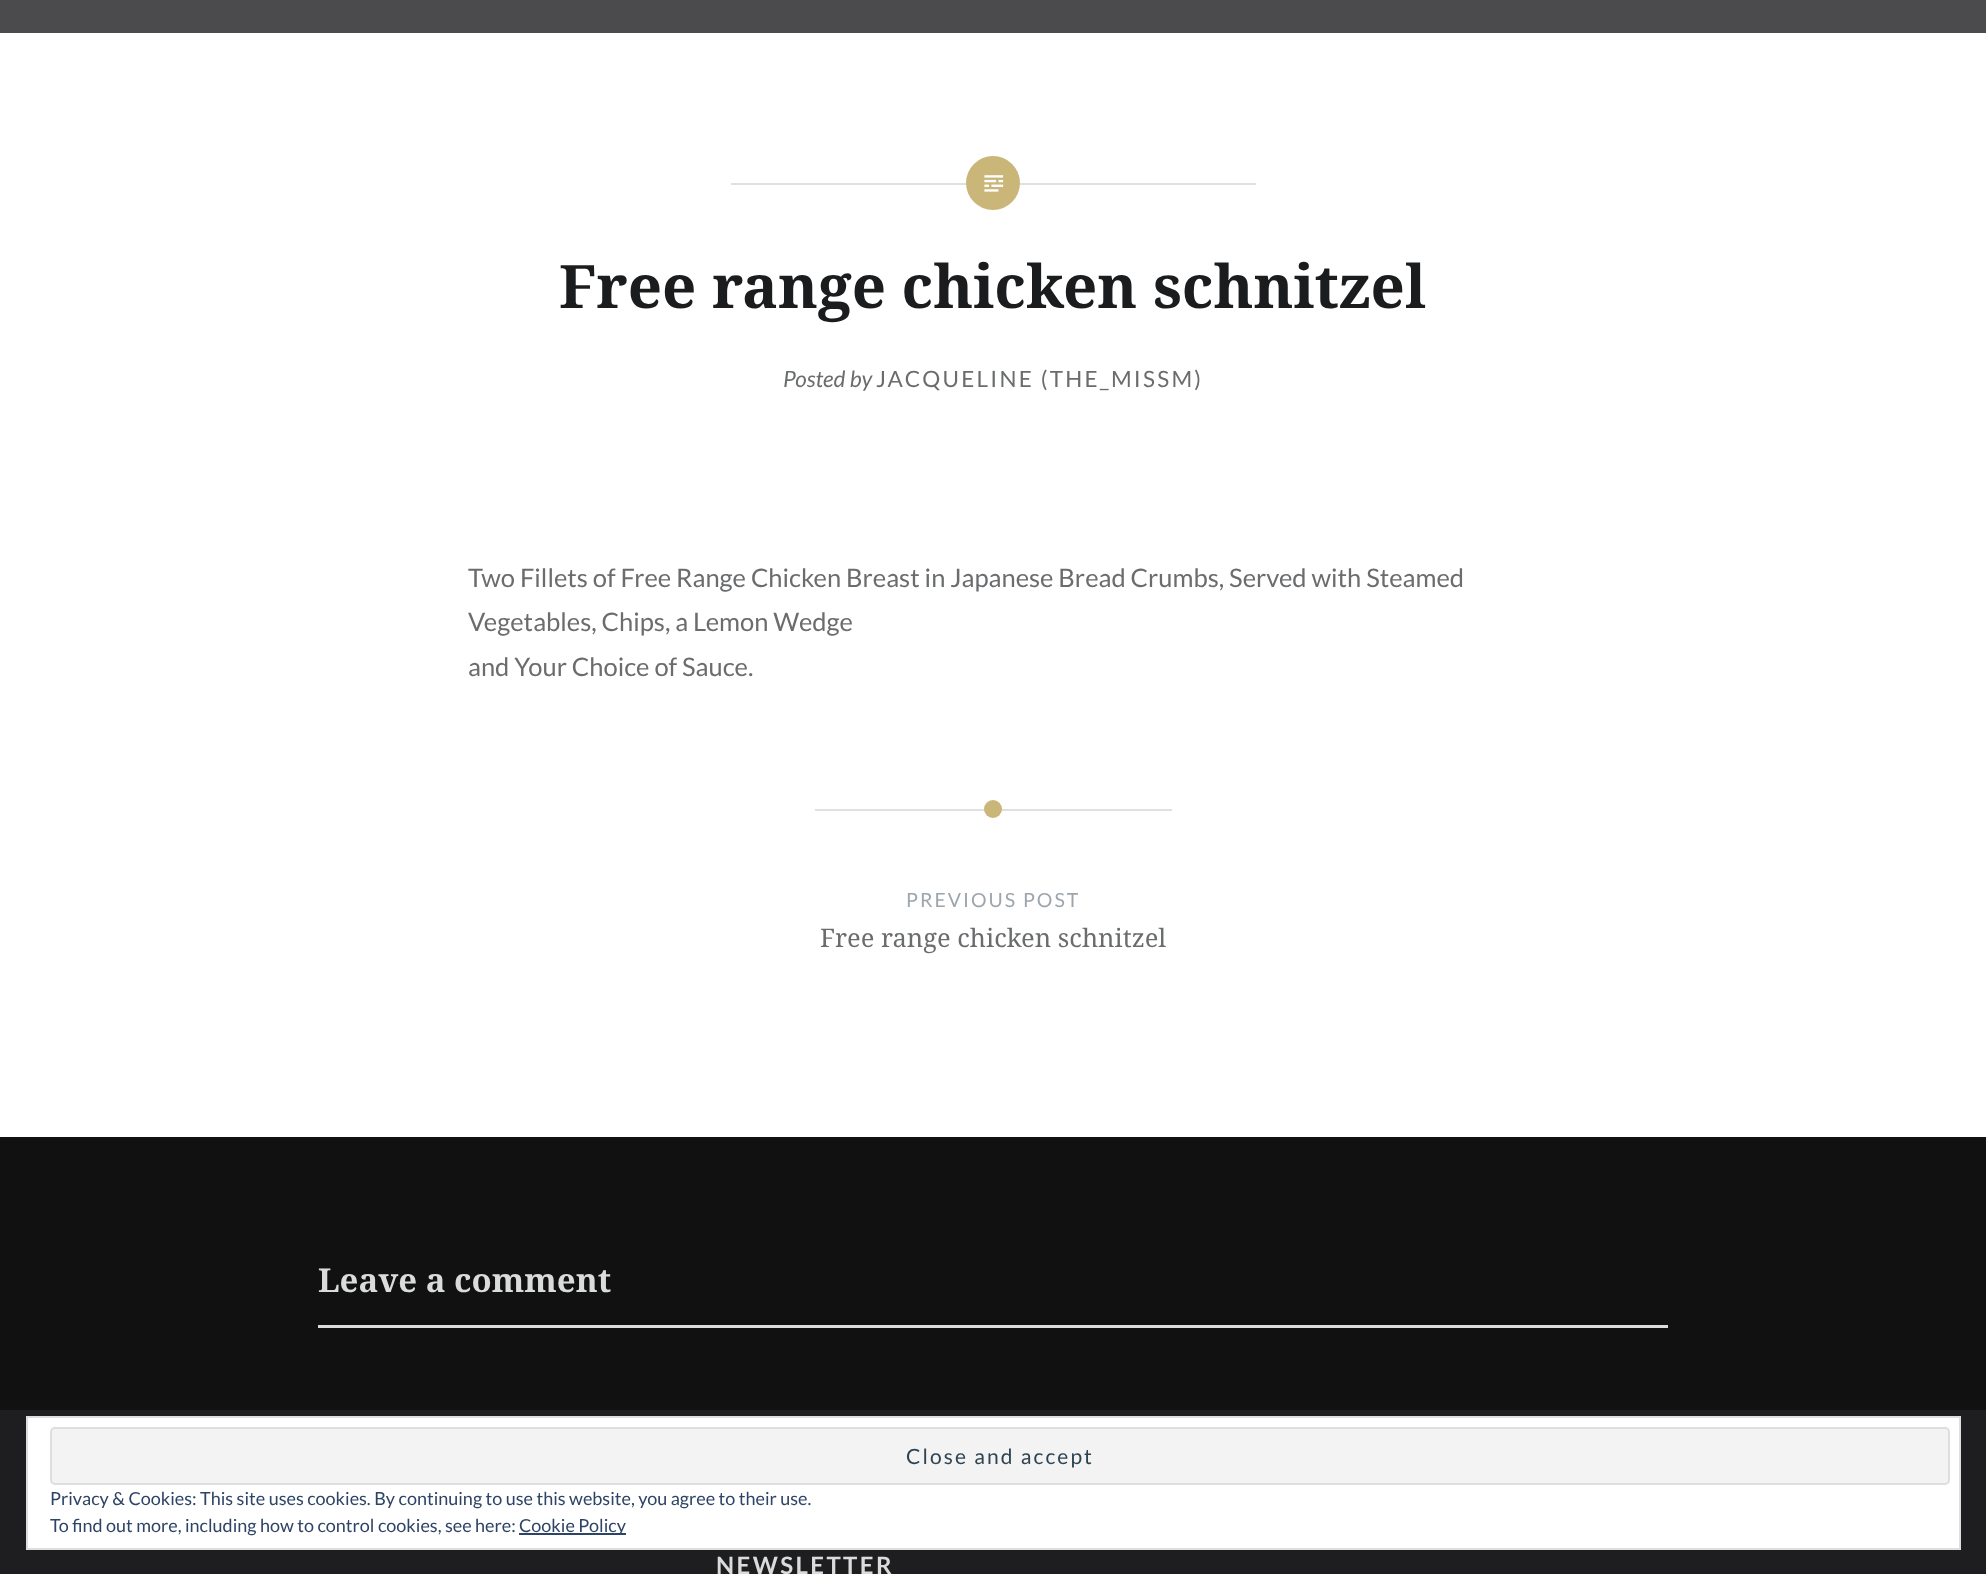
<svg xmlns="http://www.w3.org/2000/svg" width="1986" height="1574">
<style>
.a{font:bold 60px Noto Serif;fill:#1a1c1e}
.b{font:italic 22.5px Lato;fill:#6a6c6e}
.c{font:22.5px Lato;letter-spacing:2.25px;fill:#6a6c6e}
.d{font:25.5px Lato;fill:#6a6c6e}
.e{font:19.5px Lato;letter-spacing:2px;fill:#9da5ad}
.f{font:25.5px Noto Serif;fill:#6a6c6e}
.g{font:bold 33px Noto Serif;fill:#dadcdc}
.h{font:bold 24px Lato;letter-spacing:2.4px;fill:#dadcdc}
.i{font:21px Lato;letter-spacing:2.1px;fill:#2e4453}
.j{font:18px Lato;fill:#2e4467}
</style>
<rect width="100%" height="100%" fill="#fff"/>
<path fill="#4b4b4d" d="M0 0h1986v33H0z"/>
<path fill="#e0e0e0" d="M731 183h525v2H731z"/>
<circle fill="#c9b678" cx="993" cy="183" r="27"/>
<image href="1.png" x="984" y="175" width="20" height="17"/>
<path fill="#e0e0e0" d="M815 809h357v2H815z"/>
<circle fill="#c9b678" cx="993" cy="809" r="9"/>
<path fill="#111112" d="M0 1137h1986v273H0z"/>
<path fill="#dcdcde" d="M318 1325h1350v3H318z"/>
<path fill="#1e1e20" d="M0 1410h1986v164H0z"/>
<path fill="#fff" stroke="#dedede" stroke-width="2" d="M27 1417h1933v132H27z"/>
<rect fill="#f3f3f3" stroke="#dedede" stroke-width="2" x="51" y="1428" width="1898" height="56" rx="4"/>
<path fill="#2e4467" d="M519 1533h107v2H519z"/>
<text class="a" x="559" y="308">Free range chicken schnitzel</text>
<text class="b" x="783" y="387">Posted by</text>
<text class="c" x="876" y="387">JACQUELINE (THE_MISSM)</text>
<text class="d" x="468" y="587">Two Fillets of Free Range Chicken Breast in Japanese Bread Crumbs, Served with Steamed</text>
<text class="d" x="468" y="631">Vegetables, Chips, a Lemon Wedge</text>
<text class="d" x="468" y="676">and Your Choice of Sauce.</text>
<text class="e" x="906" y="907">PREVIOUS POST</text>
<text class="f" x="820" y="947">Free range chicken schnitzel</text>
<text class="g" x="318" y="1292">Leave a comment</text>
<text class="h" x="716" y="1574">NEWSLETTER</text>
<text class="i" x="906" y="1464">Close and accept</text>
<text class="j" x="50" y="1505">Privacy &amp; Cookies: This site uses cookies. By continuing to use this website, you agree to their use.</text>
<text class="j" x="50" y="1532">To find out more, including how to control cookies, see here:</text>
<text class="j" x="519" y="1532">Cookie Policy</text>
</svg>
